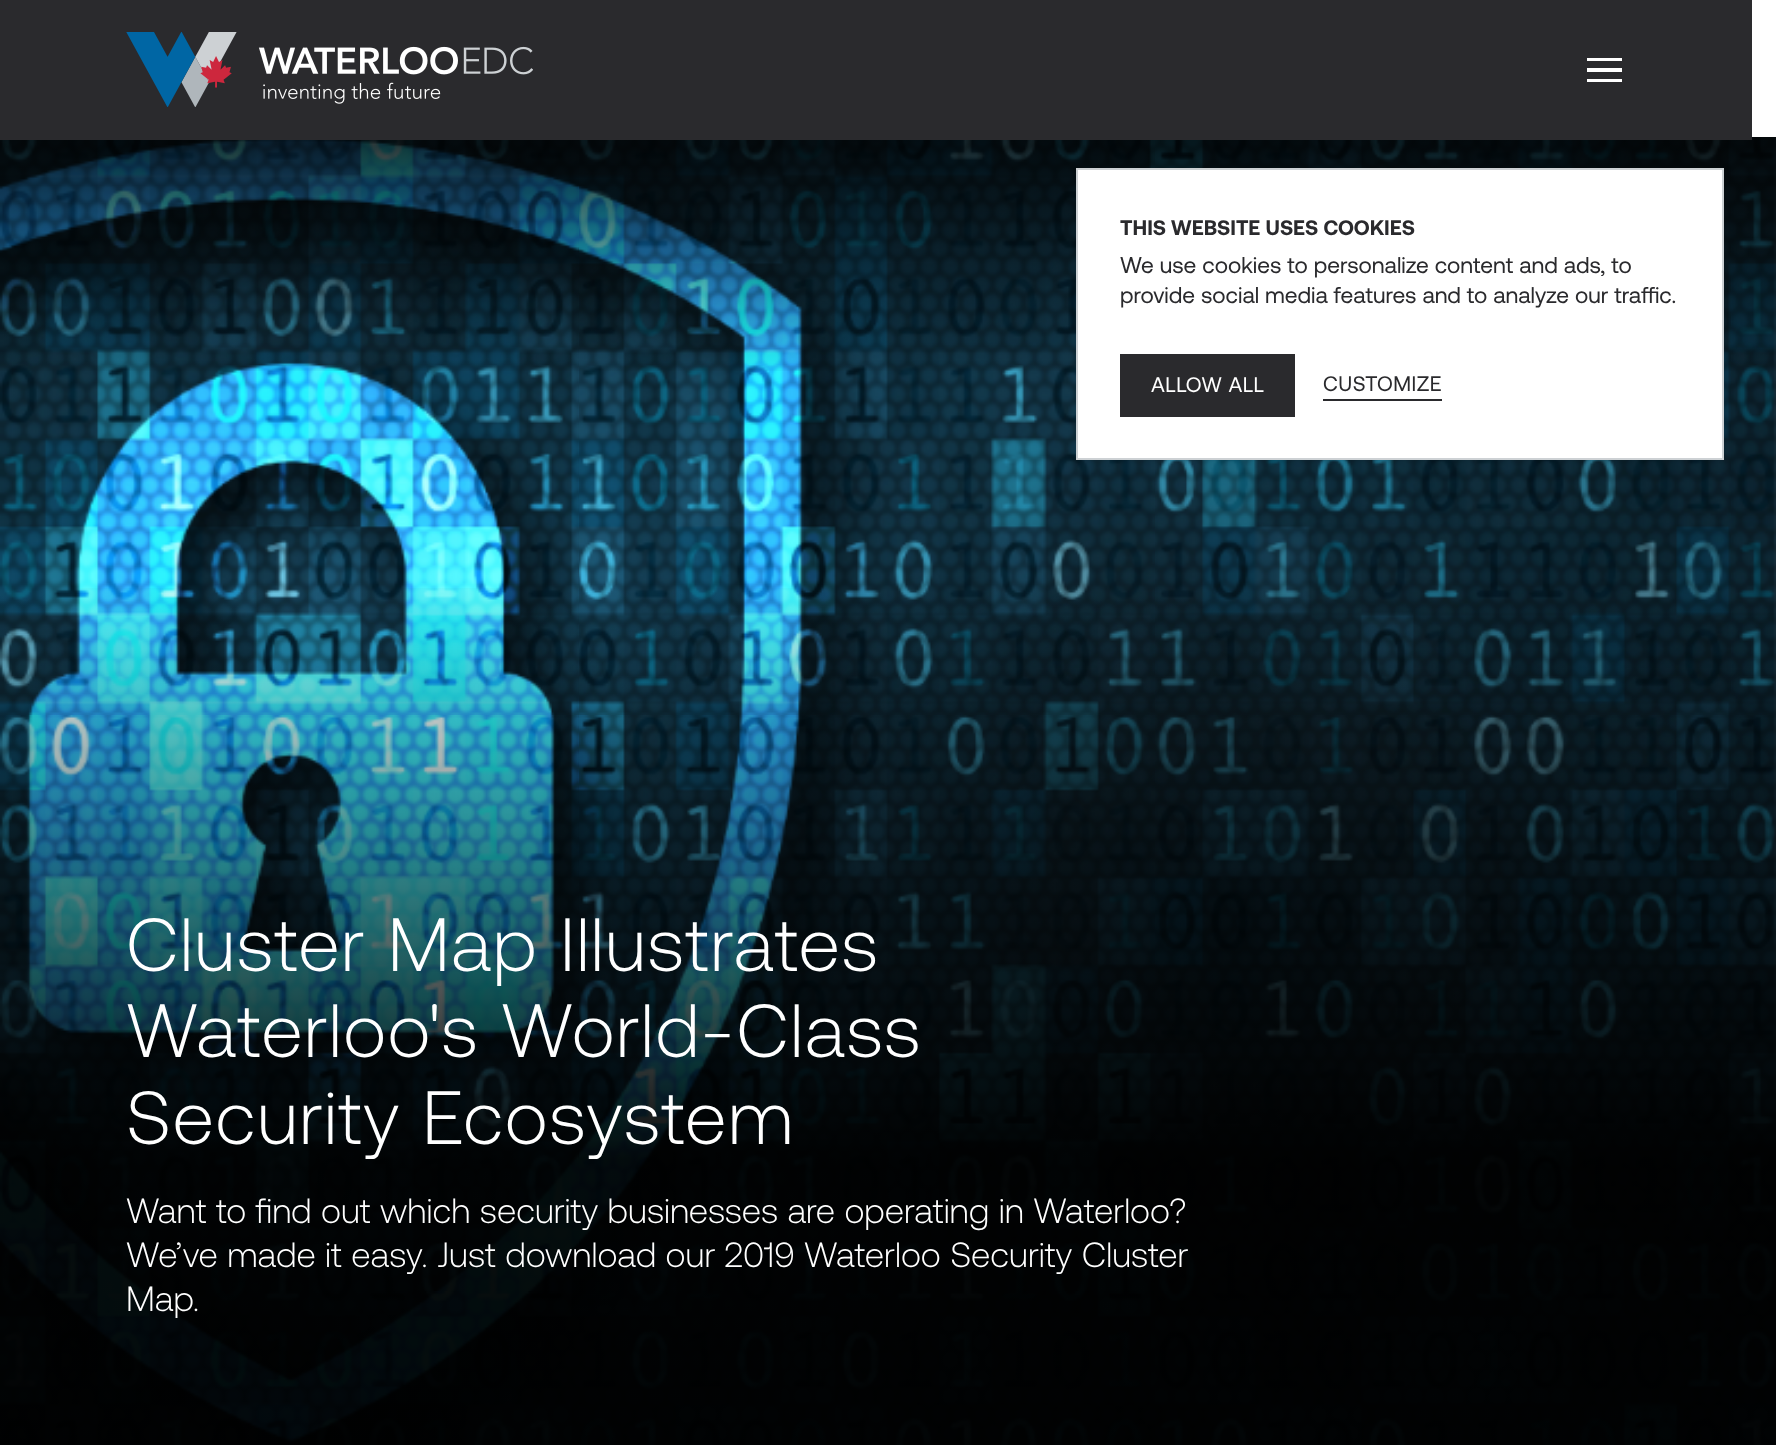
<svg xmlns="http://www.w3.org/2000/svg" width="1776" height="1445">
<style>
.a{font:bold 21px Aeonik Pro;fill:#2a2a2d}
.b{font:22.75px Aeonik Pro;fill:#2a2a2d}
.c{font:21px Aeonik Pro;letter-spacing:0.5px;fill:#fff}
.d{font:21px Aeonik Pro;letter-spacing:0.5px;fill:#2a2a2d}
.e{font:300 75.25px Aeonik Pro;letter-spacing:1.5px;fill:#fff}
.f{font:300 35px Aeonik Pro;fill:#fff}
</style>
<defs>
<linearGradient id="g1" gradientUnits="userSpaceOnUse" x1="888" y1="136" x2="888" y2="378"><stop offset="0" stop-color="#000" stop-opacity="0.8"/><stop offset="1" stop-color="#000" stop-opacity="0"/></linearGradient>
<linearGradient id="g2" gradientUnits="userSpaceOnUse" x1="888" y1="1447" x2="888" y2="575"><stop offset="0.33" stop-color="#000" stop-opacity="0.95"/><stop offset="1" stop-color="#000" stop-opacity="0"/></linearGradient>
</defs>
<rect width="100%" height="100%" fill="#fff"/>
<image href="2.png" x="0" y="137" width="1776" height="1308"/>
<path fill="url(#g1)" d="M0 137h1776v234H0z"/>
<path fill="#fff" stroke="#cdd1d4" stroke-width="2" d="M1077 169h646v290H1077z"/>
<path fill="#2a2a2d" d="M1120 354h175v63H1120z"/>
<path fill="#2a2a2d" d="M1323 399h119v2H1323z"/>
<path fill="#2a2a2d" d="M0 0h1752v140H0z"/>
<image href="1.png" x="126" y="32" width="407" height="75"/>
<path fill="#fff" d="M1587 58v3h35v-3zm0 10v4h35v-4zm0 11v3h35v-3z"/>
<path fill="url(#g2)" d="M0 588h1776v857H0z"/>
<text class="a" x="1120" y="235">THIS WEBSITE USES COOKIES</text>
<text class="b" x="1120" y="273">We use cookies to personalize content and ads, to</text>
<text class="b" x="1120" y="303">provide social media features and to analyze our traffic.</text>
<text class="c" x="1151" y="392">ALLOW ALL</text>
<text class="d" x="1323" y="391">CUSTOMIZE</text>
<text class="e" x="126" y="971">Cluster Map Illustrates</text>
<text class="e" x="126" y="1057">Waterloo's World-Class</text>
<text class="e" x="126" y="1144">Security Ecosystem</text>
<text class="f" x="126" y="1223">Want to find out which security businesses are operating in Waterloo?</text>
<text class="f" x="126" y="1267">We’ve made it easy. Just download our 2019 Waterloo Security Cluster</text>
<text class="f" x="126" y="1311">Map.</text>
</svg>
